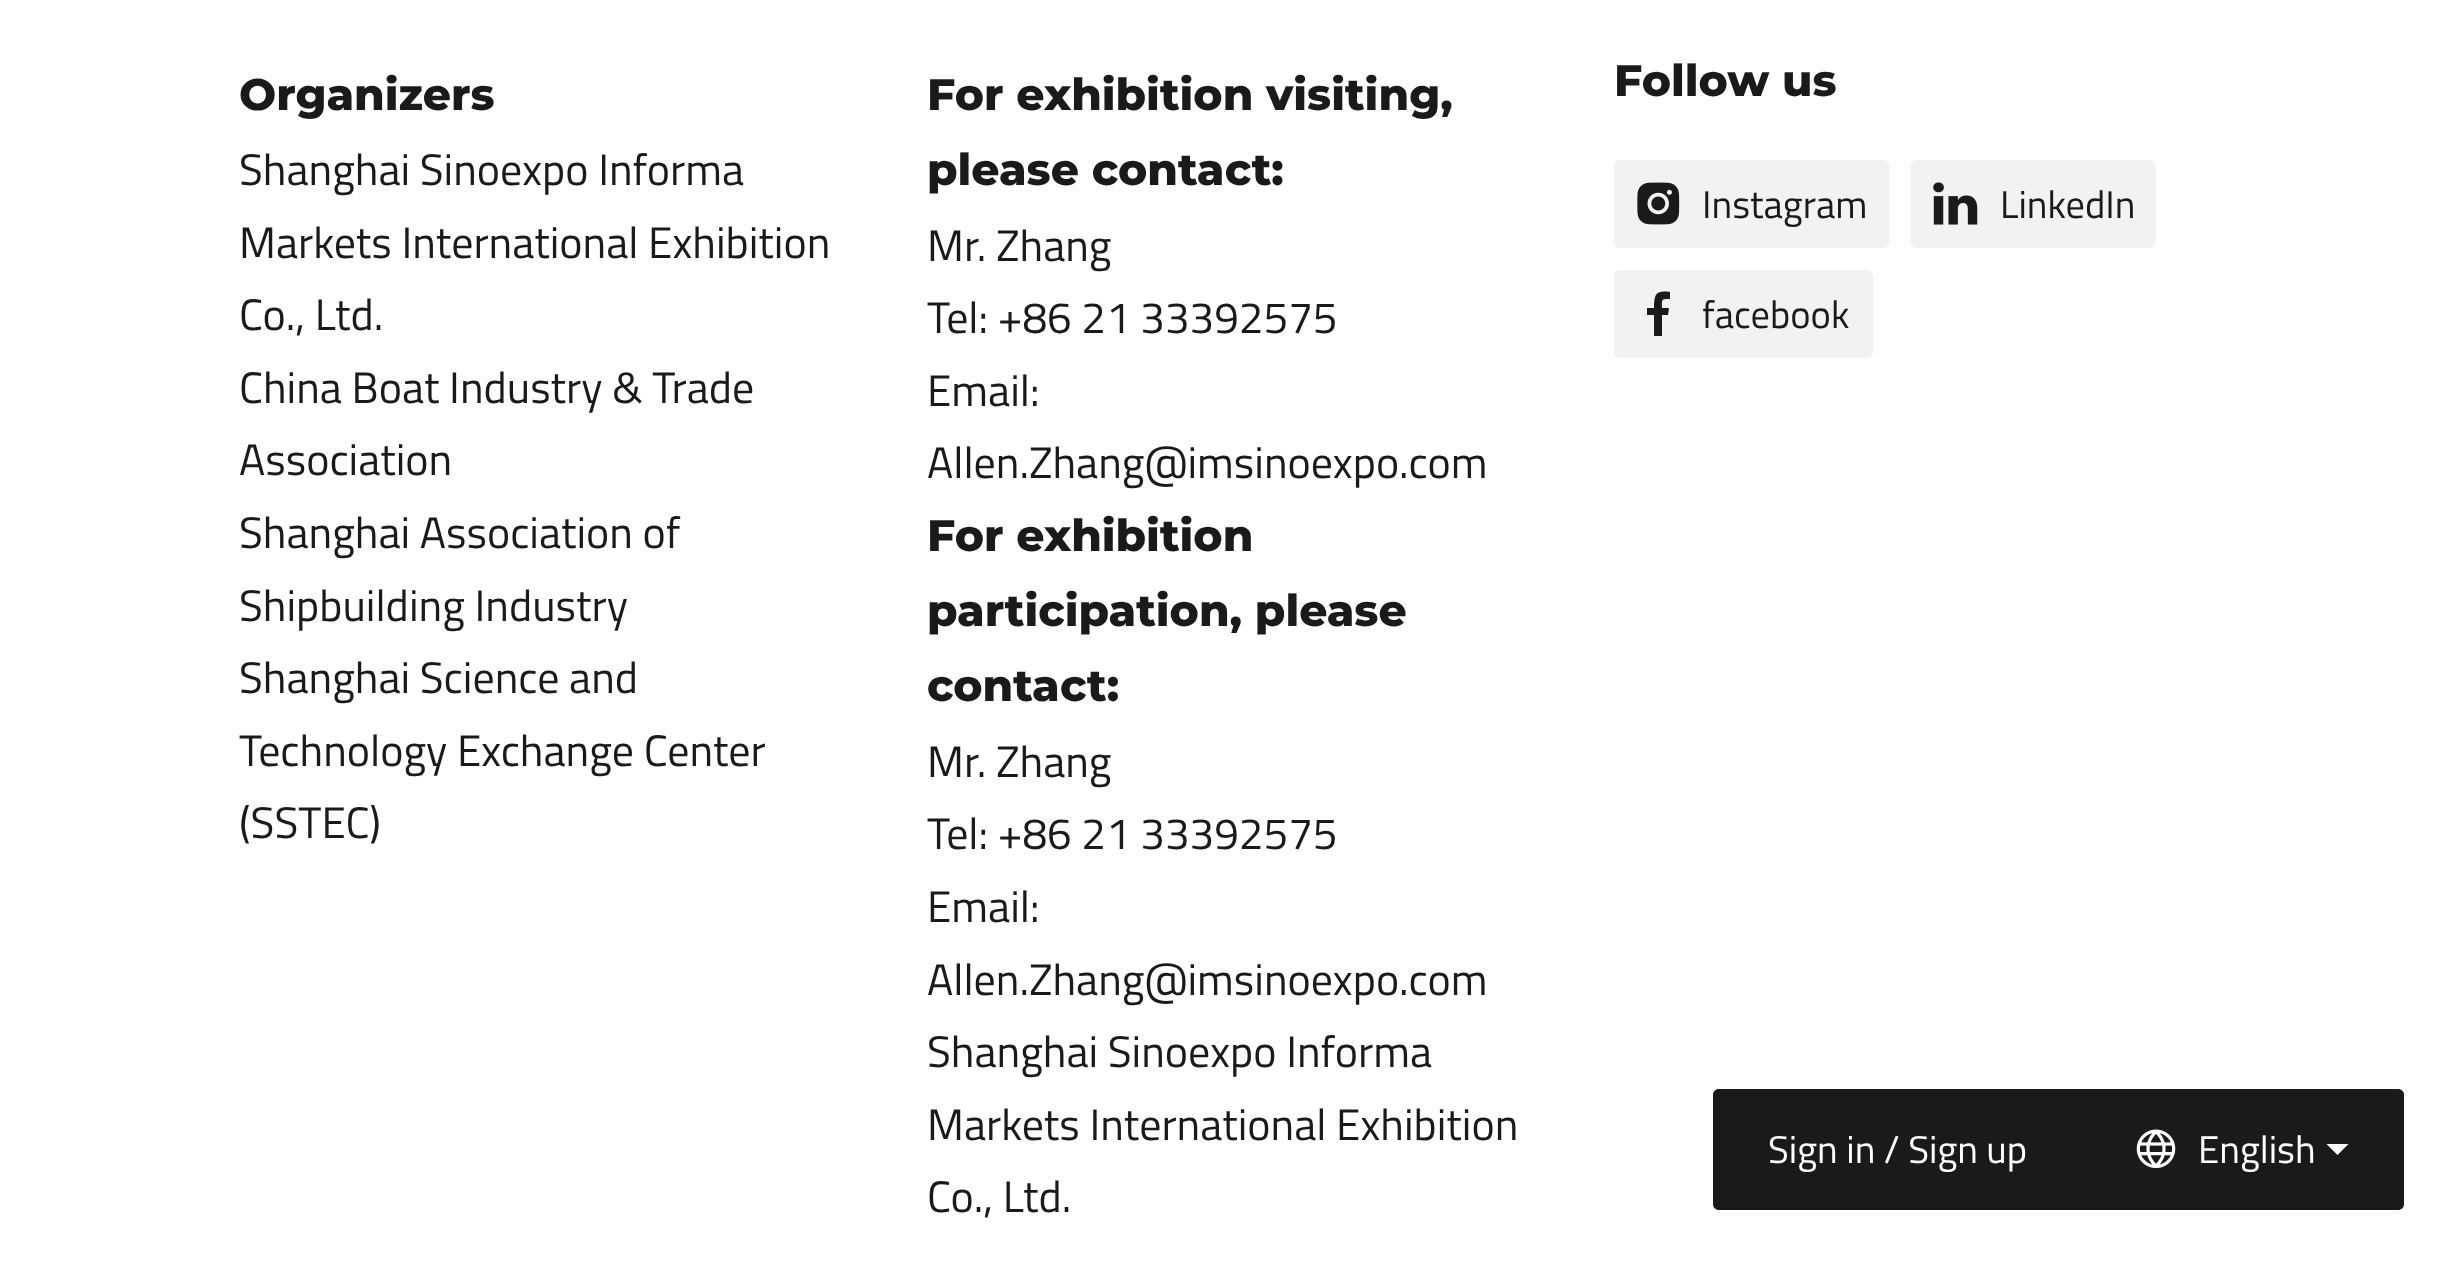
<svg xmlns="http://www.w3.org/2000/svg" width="2457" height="1265">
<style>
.a{font:800 44px Montserrat;fill:#1a1a1a}
.b{font:44px Titillium Web;fill:#1a1a1a}
.c{font:38.5px Titillium Web;fill:#1a1a1a}
.d{font:38.5px Titillium Web;fill:#fff}
</style>
<rect width="100%" height="100%" fill="#fff"/>
<rect fill="#f2f2f2" x="1614" y="160" width="275" height="88" rx="6"/>
<image href="1.png" x="1637" y="182" width="43" height="43"/>
<rect fill="#f2f2f2" x="1911" y="160" width="245" height="88" rx="6"/>
<image href="2.png" x="1933" y="182" width="45" height="43"/>
<rect fill="#f2f2f2" x="1614" y="270" width="259" height="88" rx="6"/>
<path fill="#1a1a1a" d="M1670 292v7c-9 0-8 0-8 9h7l-1 7h-6v21h-8v-21h-7v-7h7c0-14 2-18 16-16z"/>
<path fill="#1a1a1a" d="M1719 1089h363v121h-363c-3.5 0-6-2.5-6-6v-109c0-3.5 2.5-6 6-6z"/>
<path fill="#1a1a1a" d="M2082 1089h316c3.5 0 6 2.5 6 6v109c0 3.5-2.5 6-6 6h-316z"/>
<image href="3.png" x="2136" y="1129" width="40" height="40"/>
<path fill="#fff" d="M2326.5 1144h22l-11 11z"/>
<text class="a" x="239" y="110">Organizers</text>
<text class="b" x="239" y="185">Shanghai Sinoexpo Informa</text>
<text class="b" x="239" y="258">Markets International Exhibition</text>
<text class="b" x="239" y="330">Co., Ltd.</text>
<text class="b" x="239" y="403">China Boat Industry &amp; Trade</text>
<text class="b" x="239" y="475">Association</text>
<text class="b" x="239" y="548">Shanghai Association of</text>
<text class="b" x="239" y="621">Shipbuilding Industry</text>
<text class="b" x="239" y="693">Shanghai Science and</text>
<text class="b" x="239" y="766">Technology Exchange Center</text>
<text class="b" x="239" y="838">(SSTEC)</text>
<text class="a" x="927" y="110">For exhibition visiting,</text>
<text class="a" x="927" y="185">please contact:</text>
<text class="b" x="927" y="261">Mr. Zhang</text>
<text class="b" x="927" y="333">Tel: +86 21 33392575</text>
<text class="b" x="927" y="406">Email:</text>
<text class="b" x="927" y="478">Allen.Zhang@imsinoexpo.com</text>
<text class="a" x="927" y="551">For exhibition</text>
<text class="a" x="927" y="626">participation, please</text>
<text class="a" x="927" y="701">contact:</text>
<text class="b" x="927" y="777">Mr. Zhang</text>
<text class="b" x="927" y="849">Tel: +86 21 33392575</text>
<text class="b" x="927" y="922">Email:</text>
<text class="b" x="927" y="995">Allen.Zhang@imsinoexpo.com</text>
<text class="b" x="927" y="1067">Shanghai Sinoexpo Informa</text>
<text class="b" x="927" y="1140">Markets International Exhibition</text>
<text class="b" x="927" y="1212">Co., Ltd.</text>
<text class="a" x="1614" y="96">Follow us</text>
<text class="c" x="1702" y="218">Instagram</text>
<text class="c" x="2000" y="218">LinkedIn</text>
<text class="c" x="1702" y="328">facebook</text>
<text class="d" x="1768" y="1163">Sign in / Sign up</text>
<text class="d" x="2198" y="1163">English</text>
</svg>
